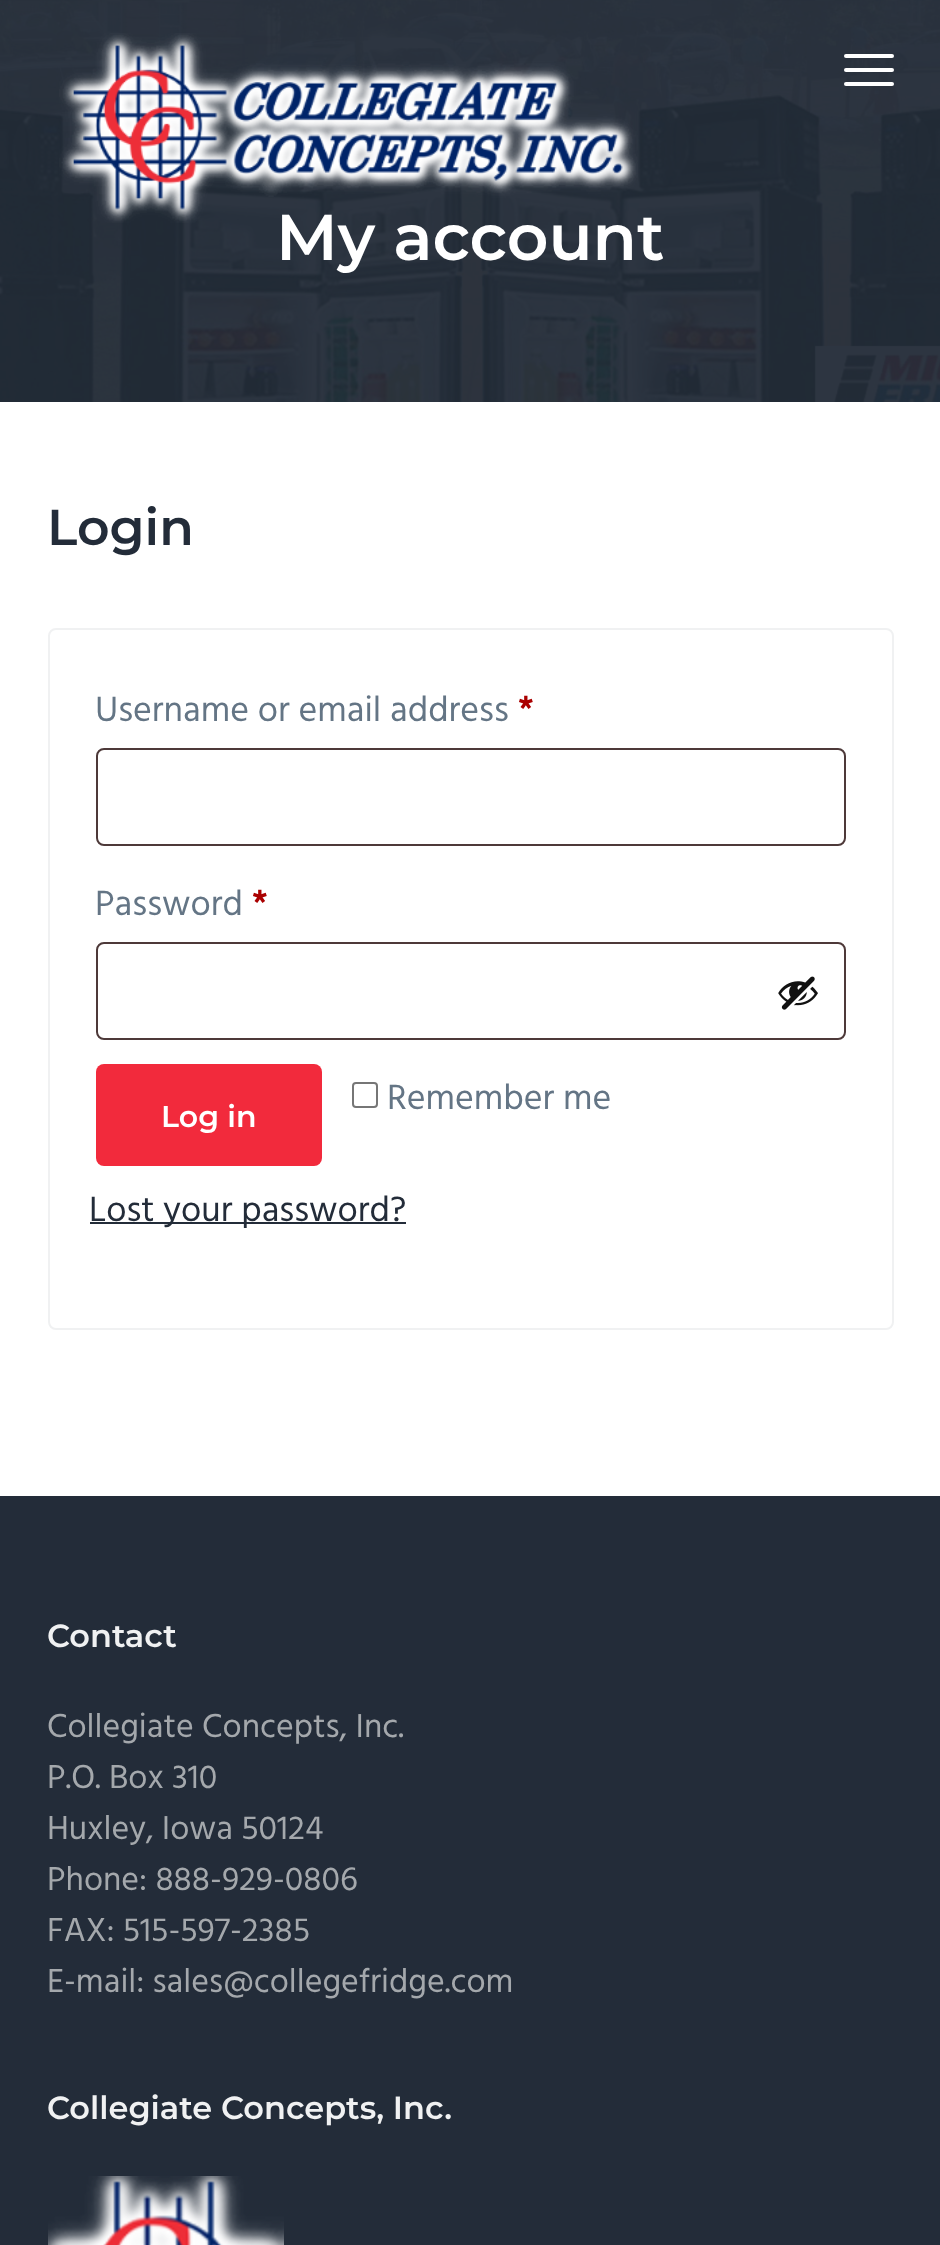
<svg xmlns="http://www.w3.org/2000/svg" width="940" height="2245">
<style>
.a{font:100 64.75px Montserrat;fill:#fff}
.b{font:100 50.5px Montserrat;fill:#232c39}
.c{font:36px Hind;fill:#647585}
.d{font:bold 36px Hind;fill:#a00}
.e{font:100 30px Montserrat;fill:#fff}
.f{font:36px Hind;fill:#232c39}
.g{font:100 32px Montserrat;fill:#f0f1f2}
.h{font:34px Hind;fill:#a4a8ac}
</style>
<rect width="100%" height="100%" fill="#fff"/>
<image href="2.png" x="0" y="0" width="940" height="402"/>
<rect fill="#fff" x="844" y="68" width="50" height="4" rx="2"/>
<rect fill="#fff" x="844" y="54" width="50" height="4" rx="2"/>
<rect fill="#fff" x="844" y="82" width="50" height="4" rx="2"/>
<rect fill="none" stroke="#f0f1f2" stroke-width="2" x="49" y="629" width="844" height="700" rx="7"/>
<rect fill="none" stroke="#4d3939" stroke-width="2" x="97" y="749" width="748" height="96" rx="7"/>
<rect fill="none" stroke="#4d3939" stroke-width="2" x="97" y="943" width="748" height="96" rx="7"/>
<image href="3.png" x="778" y="976" width="40" height="34"/>
<rect fill="none" stroke="#767676" stroke-width="2" x="353" y="1083" width="24" height="24" rx="3"/>
<rect fill="#f22a3c" x="96" y="1064" width="226" height="102" rx="8"/>
<path fill="#232c39" d="M90 1222h316v2H90z"/>
<path fill="#232c39" d="M0 1496h940v749H0z"/>
<image href="4.png" x="48" y="2176" width="236" height="69"/>
<text class="a" x="276" y="260">My account</text>
<image href="1.png" x="59" y="33" width="579" height="190"/>
<text class="b" x="47" y="545">Login</text>
<text class="c" x="95" y="721">Username or email address</text>
<text class="d" x="518" y="721">*</text>
<text class="c" x="95" y="915">Password</text>
<text class="d" x="252" y="915">*</text>
<text class="c" x="387" y="1109">Remember me</text>
<text class="e" x="161" y="1127">Log in</text>
<text class="f" x="89" y="1221">Lost your password?</text>
<text class="g" x="47" y="1647">Contact</text>
<text class="h" x="47" y="1737">Collegiate Concepts, Inc.</text>
<text class="h" x="47" y="1788">P.O. Box 310</text>
<text class="h" x="47" y="1839">Huxley, Iowa 50124</text>
<text class="h" x="47" y="1890">Phone: 888-929-0806</text>
<text class="h" x="47" y="1941">FAX: 515-597-2385</text>
<text class="h" x="47" y="1992">E-mail: sales@collegefridge.com</text>
<text class="g" x="47" y="2119">Collegiate Concepts, Inc.</text>
</svg>
